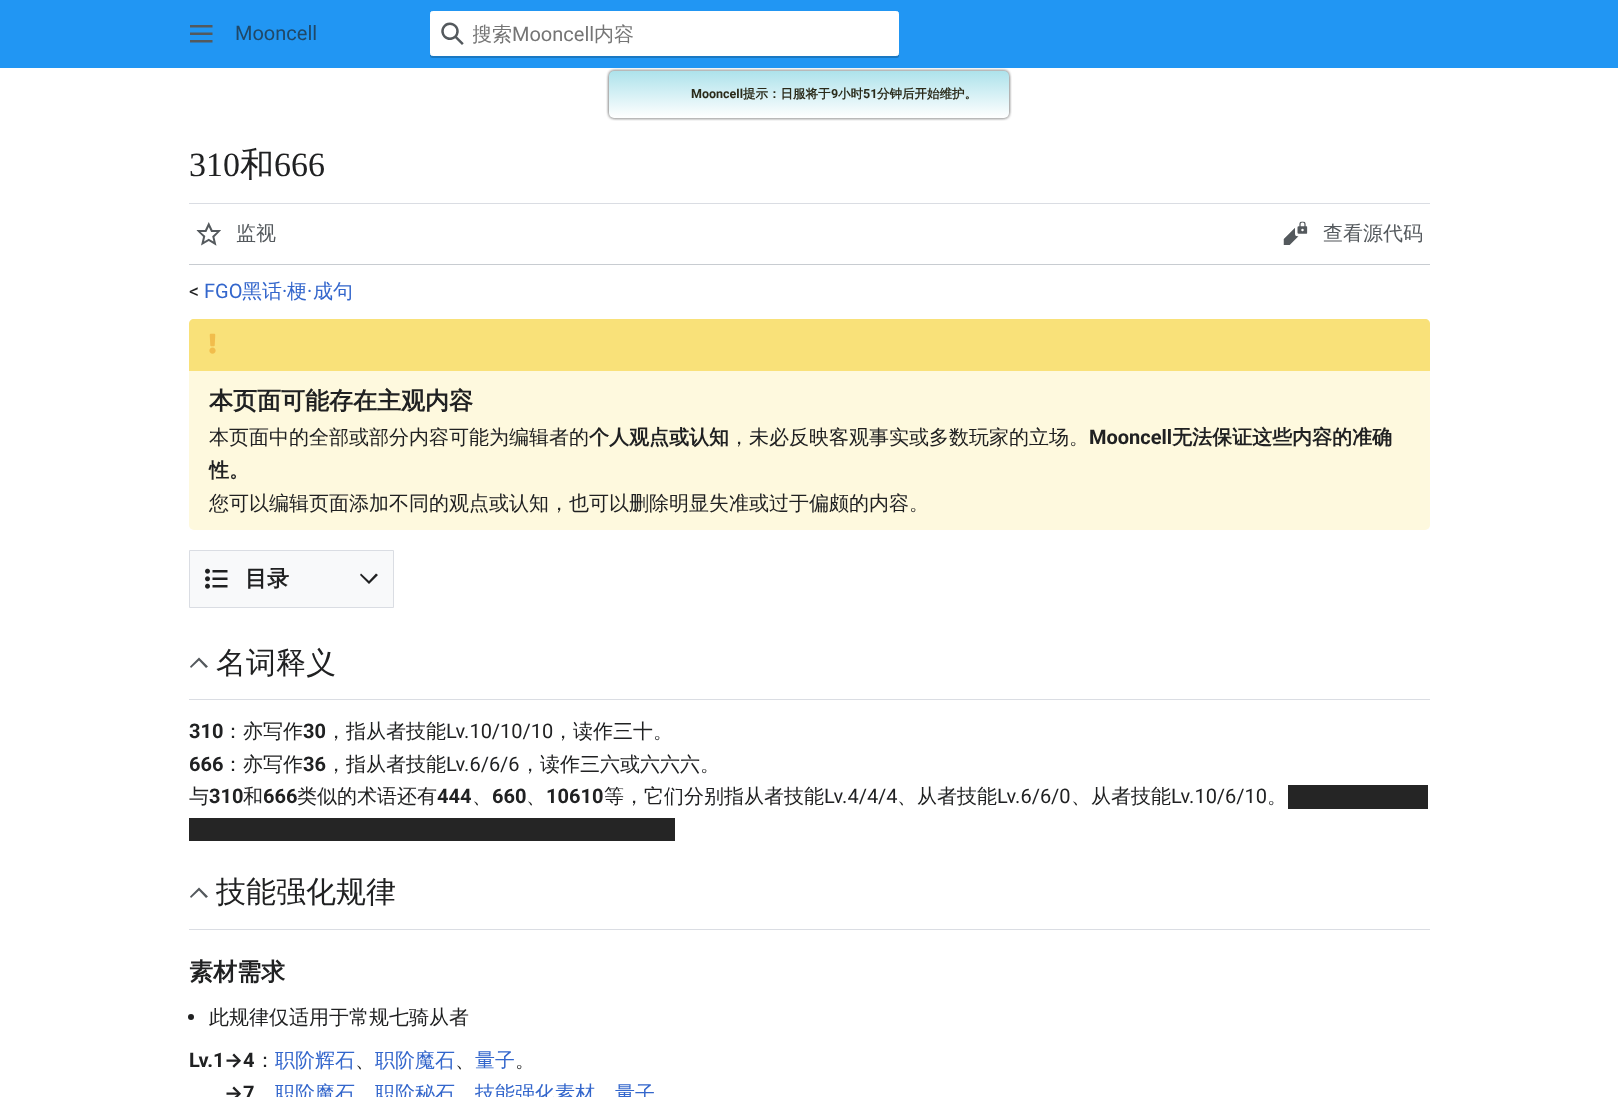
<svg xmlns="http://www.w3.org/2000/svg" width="1618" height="1097">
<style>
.a{font:20px Roboto;fill:#204867}
.b{font:500 20px WenQuanYi Zen Hei;fill:#757575}
.c{font:20px Roboto;fill:#757575}
.d{font:bold 12.5px Roboto;fill:#2a2a19}
.e{font:bold 12.5px WenQuanYi Zen Hei;fill:#2a2a19}
.f{font:34px Liberation Serif;fill:#202122}
.g{font:500 34px WenQuanYi Zen Hei;fill:#202122}
.h{font:500 20px WenQuanYi Zen Hei;fill:#54595d}
.i{font:20px Roboto;fill:#202122}
.j{font:20px Roboto;fill:#36c}
.k{font:500 20px WenQuanYi Zen Hei;fill:#36c}
.l{font:bold 24px WenQuanYi Zen Hei;fill:#202122}
.m{font:500 20px WenQuanYi Zen Hei;fill:#202122}
.n{font:bold 20px WenQuanYi Zen Hei;fill:#202122}
.o{font:bold 20px Roboto;fill:#202122}
.p{font:bold 22px WenQuanYi Zen Hei;fill:#202122}
.q{font:500 30px WenQuanYi Zen Hei;fill:#202122}
.r{font:bold 20px Inter;fill:#202122}
</style>
<defs>
<linearGradient id="g1" gradientUnits="userSpaceOnUse" x1="809" y1="71" x2="809" y2="118"><stop offset="0" stop-color="#ade2eb"/><stop offset="1" stop-color="#fff"/></linearGradient>
<clipPath id="clip1"><path d="M473 23h425v26H473z"/></clipPath>
</defs>
<rect width="100%" height="100%" fill="#2196f3"/>
<image href="1.png" x="190" y="25" width="23" height="18"/>
<rect fill="#00000033" filter="blur(0.5px)" x="430" y="13" width="469" height="45" rx="2.5"/>
<rect fill="#fff" stroke="#fff" x="430.5" y="11.5" width="468" height="44" rx="2"/>
<image href="2.png" x="441" y="22" width="23" height="23"/>
<path fill="#fff" d="M0 68h1618v1029H0z"/>
<rect fill="#7f7f7f80" filter="blur(1px)" x="608" y="70" width="400" height="46" rx="5"/>
<rect fill="#7f7f7f80" filter="blur(1px)" x="608" y="73" width="400" height="46" rx="5"/>
<rect fill="#7f7f7f80" filter="blur(1px)" x="610" y="70" width="400" height="46" rx="5"/>
<rect fill="#7f7f7f80" filter="blur(1px)" x="610" y="73" width="400" height="46" rx="5"/>
<rect fill="url(#g1)" x="609" y="71" width="400" height="47" rx="5"/>
<path fill="#dadde3" d="M189 203h1241v1H189z"/>
<path fill="#c8ccd1" d="M189 264h1241v1H189z"/>
<image href="3.png" x="196" y="222" width="25" height="24"/>
<image href="4.png" x="1283" y="221" width="25" height="24"/>
<rect fill="#fef9de" x="189" y="319" width="1241" height="211" rx="5"/>
<path fill="#f9e179" d="M194 319h1231c3 0 5 2 5 5v47h-1241v-47c0-3 2-5 5-5z"/>
<image href="5.png" x="209" y="333" width="7" height="21"/>
<path fill="#f8f9fa" stroke="#dadde3" d="M189.5 550.5h204v57H189.5z"/>
<image href="6.png" x="205" y="568" width="23" height="21"/>
<path fill="#202122" d="M376 573.5l-7 7.5l-8-7.5l-1 1.5l9 9l9-9z"/>
<path fill="#dadde3" d="M189 699h1241v1H189z"/>
<path fill="#54595d" d="M206 668l-7-7.5l-8 7.5l-1-1.5l9-9l9 9z"/>
<path fill="#252525" d="M1288 785h140v24H1288z"/>
<path fill="#252525" d="M189 818h486v23H189z"/>
<path fill="#dadde3" d="M189 929h1241v1H189z"/>
<path fill="#54595d" d="M206 898l-7-7.5l-8 7.5l-1-1.5l9-9l9 9z"/>
<circle fill="#202122" cx="191" cy="1017" r="3"/>
<text class="a" x="235" y="40">Mooncell</text>
<g clip-path="url(#clip1)">
<text class="b" x="472" y="41">搜索</text>
</g>
<text class="c" x="512" y="41">Mooncell</text>
<text class="b" x="594" y="41">内容</text>
<text class="d" x="691" y="98">Mooncell</text>
<text class="e" x="743" y="98">提示：日服将于</text>
<text class="d" x="831" y="98">9</text>
<text class="e" x="838" y="98">小时</text>
<text class="d" x="863" y="98">51</text>
<text class="e" x="877" y="98">分钟后开始维护。</text>
<text class="f" x="189" y="176">310</text>
<text class="g" x="240" y="176">和</text>
<text class="f" x="274" y="176">666</text>
<text class="h" x="236" y="240">监视</text>
<text class="h" x="1323" y="240">查看源代码</text>
<text class="i" x="189" y="298">&lt;</text>
<text class="j" x="204" y="298">FGO</text>
<text class="k" x="242" y="298">黑话</text>
<text class="j" x="282" y="298">·</text>
<text class="k" x="287" y="298">梗</text>
<text class="j" x="307" y="298">·</text>
<text class="k" x="313" y="298">成句</text>
<text class="l" x="209" y="409">本页面可能存在主观内容</text>
<text class="m" x="209" y="444">本页面中的全部或部分内容可能为编辑者的</text>
<text class="n" x="589" y="444">个人观点或认知</text>
<text class="m" x="729" y="444">，未必反映客观事实或多数玩家的立场。</text>
<text class="o" x="1089" y="444">Mooncell</text>
<text class="n" x="1172" y="444">无法保证这些内容的准确</text>
<text class="n" x="209" y="477">性。</text>
<text class="m" x="209" y="510">您可以编辑页面添加不同的观点或认知，也可以删除明显失准或过于偏颇的内容。</text>
<text class="p" x="245" y="586">目录</text>
<text class="q" x="216" y="673">名词释义</text>
<text class="o" x="189" y="738">310</text>
<text class="m" x="223" y="738">：亦写作</text>
<text class="o" x="303" y="738">30</text>
<text class="m" x="326" y="738">，指从者技能</text>
<text class="i" x="446" y="738">Lv.10/10/10</text>
<text class="m" x="553" y="738">，读作三十。</text>
<text class="o" x="189" y="771">666</text>
<text class="m" x="223" y="771">：亦写作</text>
<text class="o" x="303" y="771">36</text>
<text class="m" x="326" y="771">，指从者技能</text>
<text class="i" x="446" y="771">Lv.6/6/6</text>
<text class="m" x="520" y="771">，读作三六或六六六。</text>
<text class="m" x="189" y="803">与</text>
<text class="o" x="209" y="803">310</text>
<text class="m" x="243" y="803">和</text>
<text class="o" x="263" y="803">666</text>
<text class="m" x="297" y="803">类似的术语还有</text>
<text class="o" x="437" y="803">444</text>
<text class="m" x="472" y="803">、</text>
<text class="o" x="492" y="803">660</text>
<text class="m" x="526" y="803">、</text>
<text class="o" x="546" y="803">10610</text>
<text class="m" x="604" y="803">等，它们分别指从者技能</text>
<text class="i" x="824" y="803">Lv.4/4/4</text>
<text class="m" x="897" y="803">、从者技能</text>
<text class="i" x="997" y="803">Lv.6/6/0</text>
<text class="m" x="1071" y="803">、从者技能</text>
<text class="i" x="1171" y="803">Lv.10/6/10</text>
<text class="m" x="1267" y="803">。</text>
<text class="q" x="216" y="902">技能强化规律</text>
<text class="l" x="189" y="980">素材需求</text>
<text class="m" x="209" y="1024">此规律仅适用于常规七骑从者</text>
<text class="o" x="189" y="1067">Lv.1</text>
<text class="r" x="224" y="1067">→</text>
<text class="o" x="243" y="1067">4</text>
<text class="m" x="255" y="1067">：</text>
<text class="k" x="275" y="1067">职阶辉石</text>
<text class="m" x="355" y="1067">、</text>
<text class="k" x="375" y="1067">职阶魔石</text>
<text class="m" x="455" y="1067">、</text>
<text class="k" x="475" y="1067">量子</text>
<text class="m" x="515" y="1067">。</text>
<text class="r" x="224" y="1100">→</text>
<text class="o" x="243" y="1100">7</text>
<text class="k" x="275" y="1100">职阶魔石</text>
<text class="k" x="375" y="1100">职阶秘石</text>
<text class="k" x="475" y="1100">技能强化素材</text>
<text class="k" x="615" y="1100">量子</text>
</svg>
